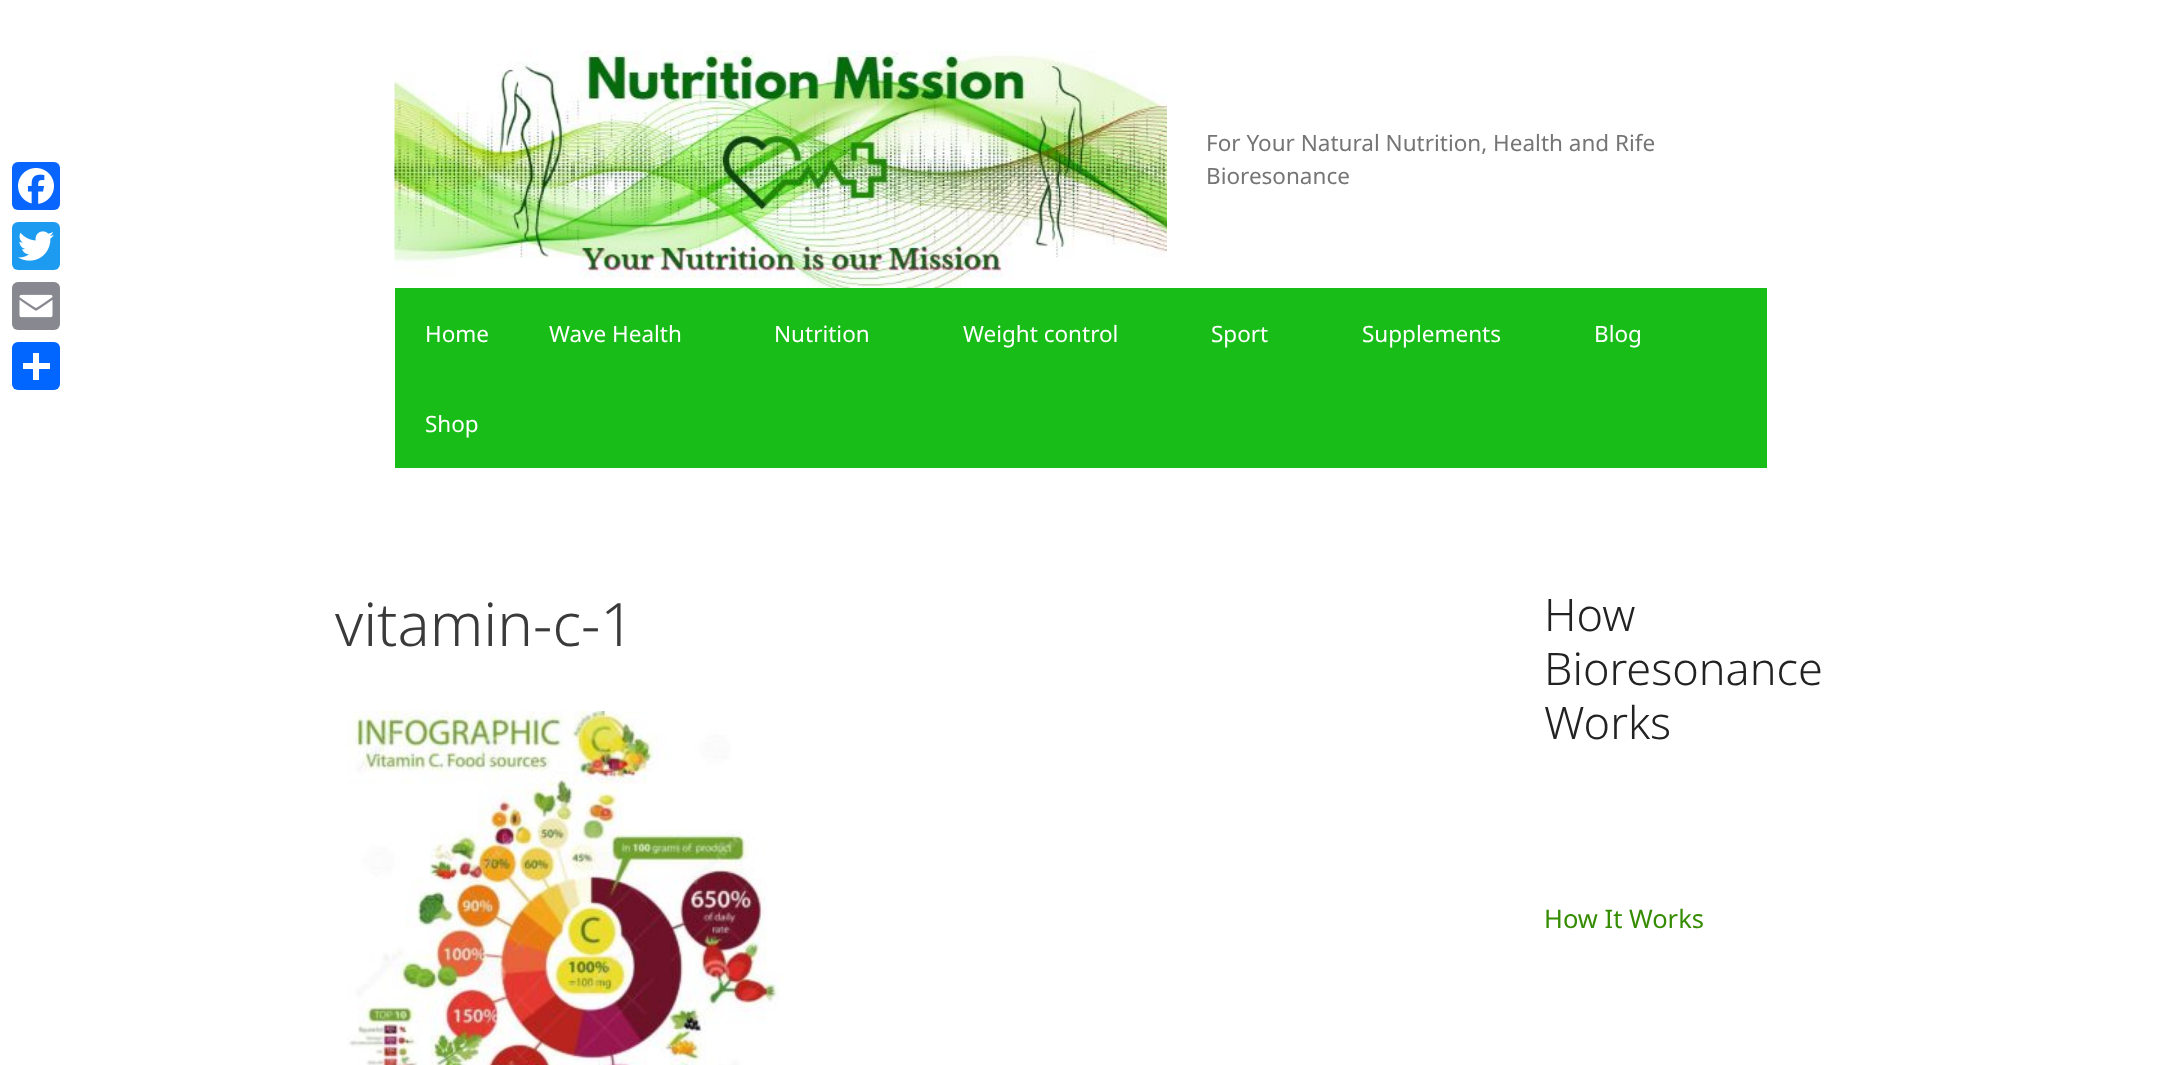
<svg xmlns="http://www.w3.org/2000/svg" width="2161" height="1065">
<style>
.a{font:22.5px Noto Sans;fill:#757575}
.b{font:22.5px Noto Sans;fill:#fff}
.c{font:300 60px Noto Sans;fill:#3a3a3a}
.d{font:300 45px Noto Sans;fill:#222}
.e{font:25.5px Noto Sans;fill:#358c00}
</style>
<rect width="100%" height="100%" fill="#fff"/>
<rect fill="#0866ff" x="12" y="162" width="48" height="48" rx="6"/>
<image href="1.png" x="18" y="168" width="36" height="36"/>
<rect fill="#1d9bf0" x="12" y="222" width="48" height="48" rx="6"/>
<image href="2.png" x="18" y="231" width="36" height="30"/>
<rect fill="#888990" x="12" y="282" width="48" height="48" rx="6"/>
<image href="3.png" x="19" y="294" width="34" height="24"/>
<rect fill="#0166ff" x="12" y="342" width="48" height="48" rx="6"/>
<path fill="#fff" d="M33 353h6v27H33z"/>
<path fill="#fff" d="M23 363h27v6H23z"/>
<image href="4.png" x="394" y="50" width="773" height="238"/>
<path fill="#18bd18" d="M395 288h1372v180H395z"/>
<image href="5.png" x="347" y="711" width="437" height="354"/>
<text class="a" x="1206" y="151">For Your Natural Nutrition, Health and Rife</text>
<text class="a" x="1206" y="184">Bioresonance</text>
<text class="b" x="425" y="342">Home</text>
<text class="b" x="549" y="342">Wave Health</text>
<text class="b" x="774" y="342">Nutrition</text>
<text class="b" x="963" y="342">Weight control</text>
<text class="b" x="1211" y="342">Sport</text>
<text class="b" x="1362" y="342">Supplements</text>
<text class="b" x="1594" y="342">Blog</text>
<text class="b" x="425" y="432">Shop</text>
<text class="c" x="335" y="646">vitamin-c-1</text>
<text class="d" x="1544" y="631">How</text>
<text class="d" x="1544" y="685">Bioresonance</text>
<text class="d" x="1544" y="739">Works</text>
<text class="e" x="1544" y="928">How It Works</text>
</svg>
